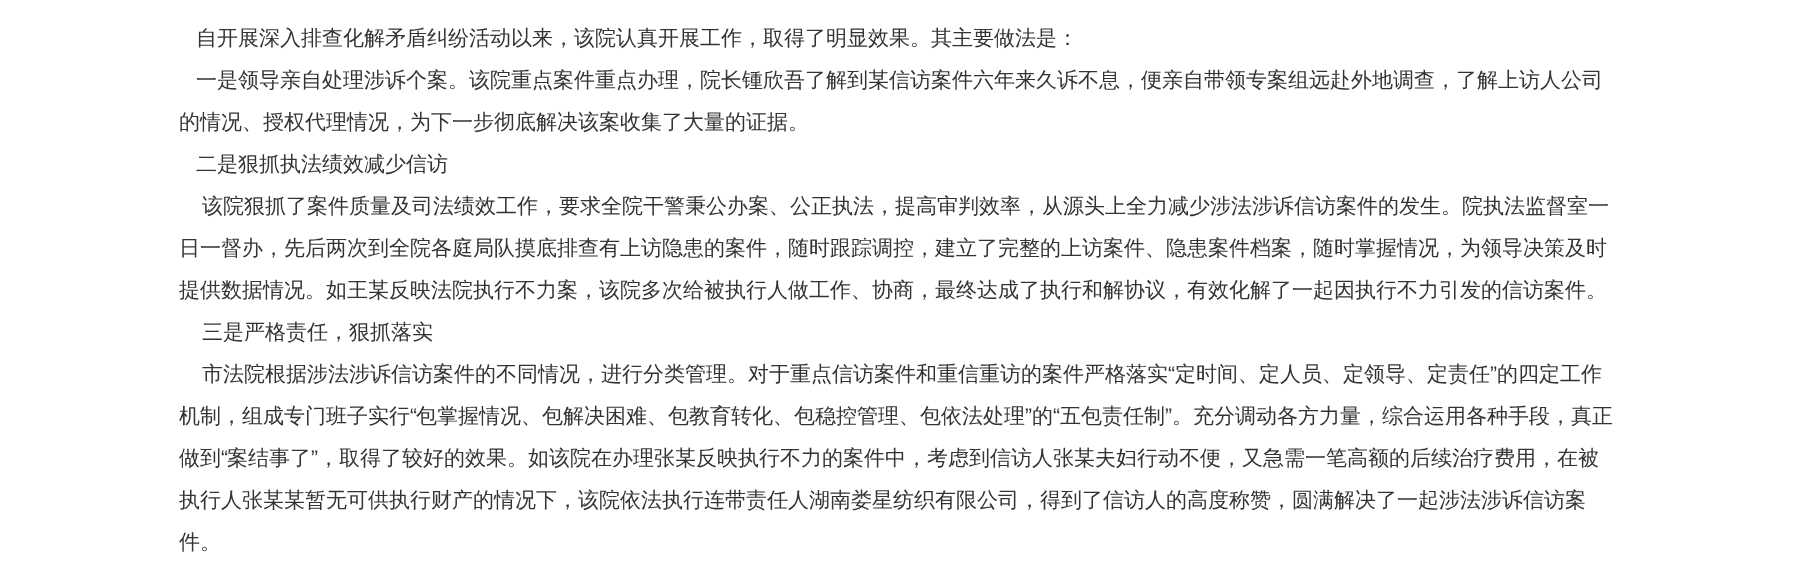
<svg xmlns="http://www.w3.org/2000/svg" width="1797" height="566">
<style>
.a{font:500 21px WenQuanYi Zen Hei;fill:#333}
.b{font:21px Liberation Sans;fill:#333}
</style>
<rect width="100%" height="100%" fill="#fff"/>
<text class="a" x="196" y="45">自开展深入排查化解矛盾纠纷活动以来，该院认真开展工作，取得了明显效果。其主要做法是：</text>
<text class="a" x="196" y="87">一是领导亲自处理涉诉个案。该院重点案件重点办理，院长锺欣吾了解到某信访案件六年来久诉不息，便亲自带领专案组远赴外地调查，了解上访人公司</text>
<text class="a" x="179" y="129">的情况、授权代理情况，为下一步彻底解决该案收集了大量的证据。</text>
<text class="a" x="196" y="171">二是狠抓执法绩效减少信访</text>
<text class="a" x="202" y="213">该院狠抓了案件质量及司法绩效工作，要求全院干警秉公办案、公正执法，提高审判效率，从源头上全力减少涉法涉诉信访案件的发生。院执法监督室一</text>
<text class="a" x="179" y="255">日一督办，先后两次到全院各庭局队摸底排查有上访隐患的案件，随时跟踪调控，建立了完整的上访案件、隐患案件档案，随时掌握情况，为领导决策及时</text>
<text class="a" x="179" y="297">提供数据情况。如王某反映法院执行不力案，该院多次给被执行人做工作、协商，最终达成了执行和解协议，有效化解了一起因执行不力引发的信访案件。</text>
<text class="a" x="202" y="339">三是严格责任，狠抓落实</text>
<text class="a" x="202" y="381">市法院根据涉法涉诉信访案件的不同情况，进行分类管理。对于重点信访案件和重信重访的案件严格落实</text>
<text class="b" x="1168" y="381">“</text>
<text class="a" x="1175" y="381">定时间、定人员、定领导、定责任</text>
<text class="b" x="1490" y="381">”</text>
<text class="a" x="1497" y="381">的四定工作</text>
<text class="a" x="179" y="423">机制，组成专门班子实行</text>
<text class="b" x="410" y="423">“</text>
<text class="a" x="416" y="423">包掌握情况、包解决困难、包教育转化、包稳控管理、包依法处理</text>
<text class="b" x="1025" y="423">”</text>
<text class="a" x="1032" y="423">的</text>
<text class="b" x="1053" y="423">“</text>
<text class="a" x="1060" y="423">五包责任制</text>
<text class="b" x="1165" y="423">”</text>
<text class="a" x="1172" y="423">。充分调动各方力量，综合运用各种手段，真正</text>
<text class="a" x="179" y="465">做到</text>
<text class="b" x="221" y="465">“</text>
<text class="a" x="227" y="465">案结事了</text>
<text class="b" x="311" y="465">”</text>
<text class="a" x="318" y="465">，取得了较好的效果。如该院在办理张某反映执行不力的案件中，考虑到信访人张某夫妇行动不便，又急需一笔高额的后续治疗费用，在被</text>
<text class="a" x="179" y="507">执行人张某某暂无可供执行财产的情况下，该院依法执行连带责任人湖南娄星纺织有限公司，得到了信访人的高度称赞，圆满解决了一起涉法涉诉信访案</text>
<text class="a" x="179" y="549">件。</text>
</svg>
